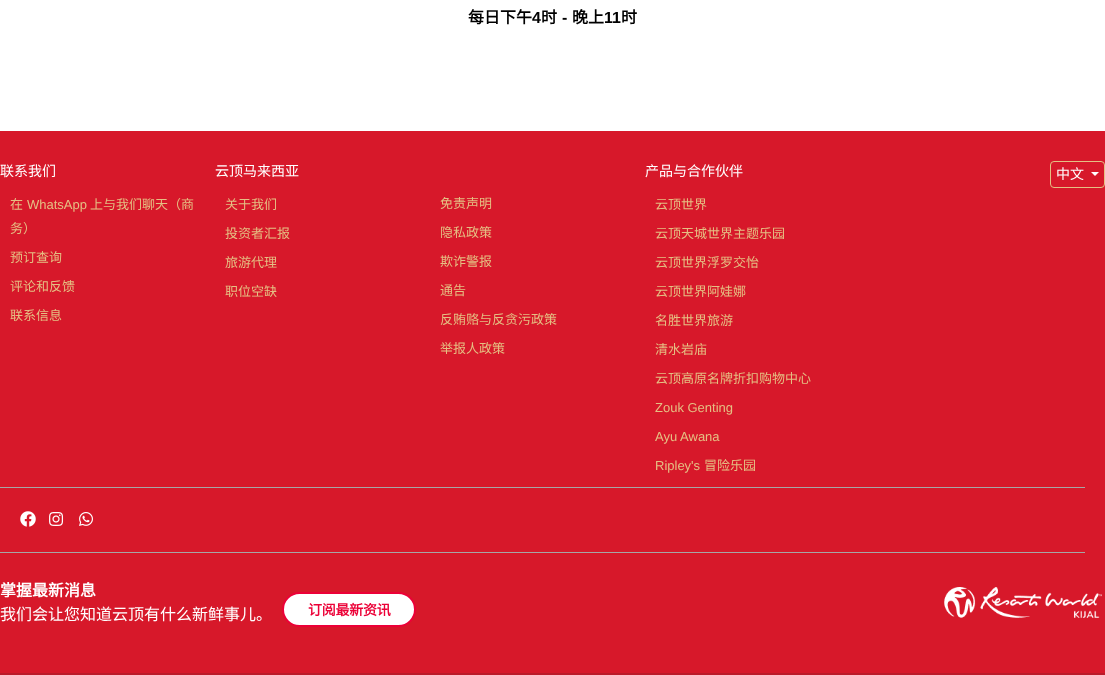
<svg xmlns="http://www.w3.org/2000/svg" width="1105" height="675">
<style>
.a{font:bold 16px Noto Sans CJK SC;fill:#000}
.b{font:bold 16px Liberation Sans;fill:#000}
.c{font:14px Noto Sans CJK SC;fill:#fff}
.d{font:13px Noto Sans CJK SC;fill:#e5bf83}
.e{font:13px Liberation Sans;fill:#e5bf83}
.f{font:bold 16px Noto Sans CJK SC;fill:#fff}
.g{font:16px Noto Sans CJK SC;fill:#fff}
.h{font:bold 14px Noto Sans CJK SC;letter-spacing:-0.25px;fill:#ec0037}
</style>
<rect width="100%" height="100%" fill="#fff"/>
<path fill="#d7182a" d="M0 131h1105v542H0z"/>
<rect fill="none" stroke="#e5bf83" x="1050.5" y="161.5" width="54" height="26" rx="3.5"/>
<path fill="#fff" d="M1091 172h8l-4 4z"/>
<path fill="#a6a6a6" d="M0 487h1085v1H0z"/>
<path fill="#a6a6a6" d="M0 552h1085v1H0z"/>
<image href="1.png" x="20" y="511" width="16" height="16"/>
<image href="2.png" x="49" y="512" width="15" height="14"/>
<image href="3.png" x="79" y="512" width="14" height="14"/>
<rect fill="#fff" stroke="#ec0037" stroke-width="2" x="283" y="593" width="132" height="33" rx="16.5"/>
<image href="4.png" x="944" y="587" width="158" height="31"/>
<path fill="#bb1a29" d="M0 673h1105v2H0z"/>
<text class="a" x="468" y="23">每日下午</text>
<text class="b" x="532" y="23">4</text>
<text class="a" x="541" y="23">时</text>
<text class="b" x="562" y="23">-</text>
<text class="a" x="572" y="23">晚上</text>
<text class="b" x="604" y="23">11</text>
<text class="a" x="621" y="23">时</text>
<text class="c" x="0" y="176">联系我们</text>
<text class="d" x="10" y="209">在</text>
<text class="e" x="27" y="209">WhatsApp</text>
<text class="d" x="90" y="209">上与我们聊天（商</text>
<text class="d" x="10" y="233">务）</text>
<text class="d" x="10" y="262">预订查询</text>
<text class="d" x="10" y="291">评论和反馈</text>
<text class="d" x="10" y="320">联系信息</text>
<text class="c" x="215" y="176">云顶马来西亚</text>
<text class="d" x="225" y="209">关于我们</text>
<text class="d" x="225" y="238">投资者汇报</text>
<text class="d" x="225" y="267">旅游代理</text>
<text class="d" x="225" y="296">职位空缺</text>
<text class="d" x="440" y="208">免责声明</text>
<text class="d" x="440" y="237">隐私政策</text>
<text class="d" x="440" y="266">欺诈警报</text>
<text class="d" x="440" y="295">通告</text>
<text class="d" x="440" y="324">反贿赂与反贪污政策</text>
<text class="d" x="440" y="353">举报人政策</text>
<text class="c" x="645" y="176">产品与合作伙伴</text>
<text class="d" x="655" y="209">云顶世界</text>
<text class="d" x="655" y="238">云顶天城世界主题乐园</text>
<text class="d" x="655" y="267">云顶世界浮罗交怡</text>
<text class="d" x="655" y="296">云顶世界阿娃娜</text>
<text class="d" x="655" y="325">名胜世界旅游</text>
<text class="d" x="655" y="354">清水岩庙</text>
<text class="d" x="655" y="383">云顶高原名牌折扣购物中心</text>
<text class="e" x="655" y="412">Zouk Genting</text>
<text class="e" x="655" y="441">Ayu Awana</text>
<text class="e" x="655" y="470">Ripley's</text>
<text class="d" x="704" y="470">冒险乐园</text>
<text class="c" x="1056" y="179">中文</text>
<text class="f" x="0" y="596">掌握最新消息</text>
<text class="g" x="0" y="620">我们会让您知道云顶有什么新鲜事儿。</text>
<text class="h" x="308" y="615">订阅最新资讯</text>
</svg>
